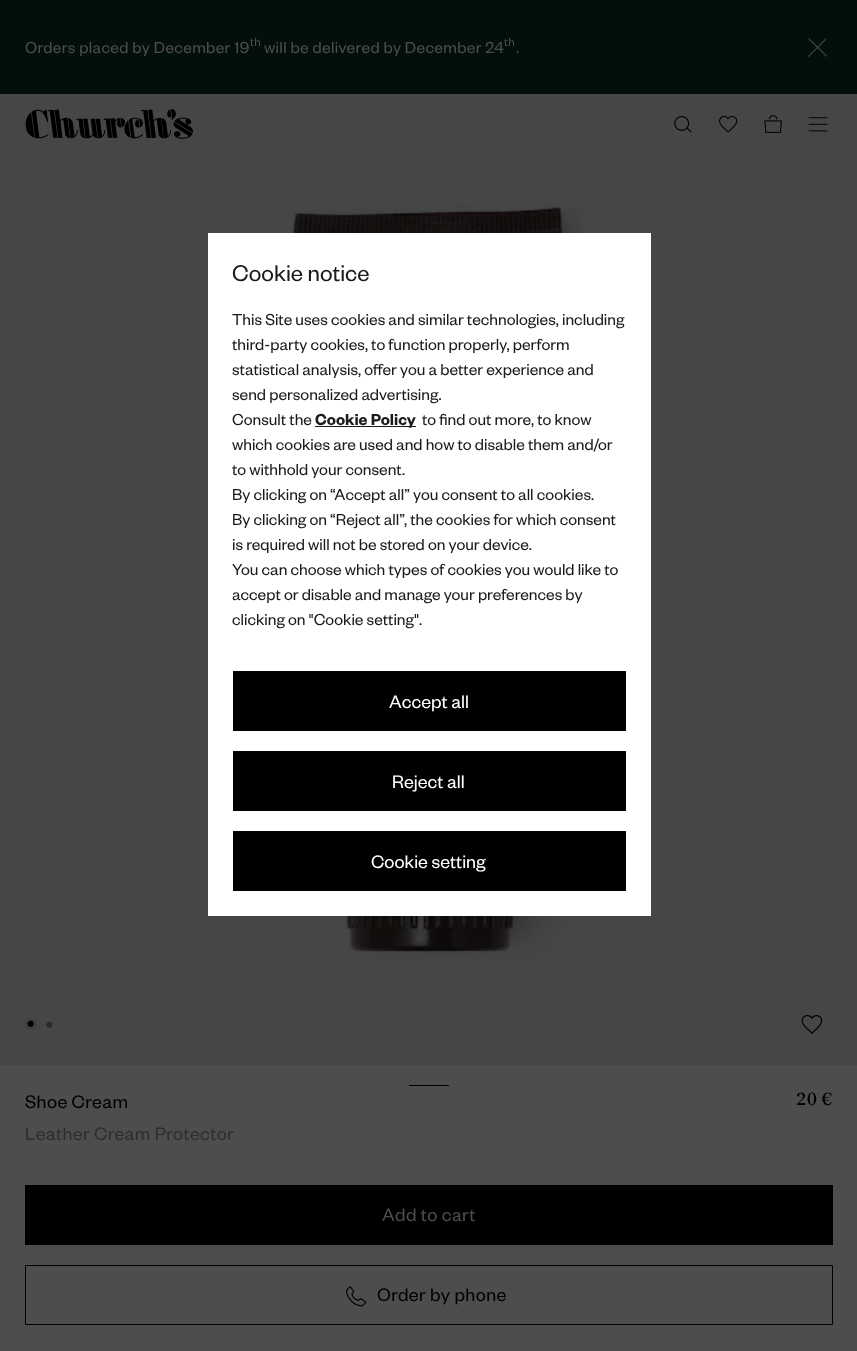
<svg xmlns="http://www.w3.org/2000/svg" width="857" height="1351">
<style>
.a{font:17.5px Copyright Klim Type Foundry;letter-spacing:0.35px;fill:#4d4d4d}
.b{font:13px Copyright Klim Type Foundry;letter-spacing:0.35px;fill:#4d4d4d}
.c{font:20px Copyright Klim Type Foundry;letter-spacing:0.4px;fill:#000}
.d{font:17.5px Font;letter-spacing:0.35px;fill:#000}
.e{font:20px Copyright Klim Type Foundry;letter-spacing:0.4px;fill:#2e2e2e}
.f{font:20px Copyright Klim Type Foundry;letter-spacing:0.4px;fill:#4d4d4d}
.g{font:25px Copyright Klim Type Foundry;fill:#191b1c}
.h{font:17.5px Copyright Klim Type Foundry;fill:#191b1c}
.i{font:600 17.5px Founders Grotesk;fill:#191b1c}
.j{font:20px Copyright Klim Type Foundry;fill:#fff}
</style>
<rect width="100%" height="100%" fill="#4d4d4d"/>
<path fill="#020f0b" d="M0 0h857v94H0z"/>
<image href="1.png" x="808" y="38" width="19" height="19"/>
<path fill="#464646" d="M0 94h857v971H0z"/>
<image href="2.png" x="25" y="109" width="168" height="30"/>
<image href="3.png" x="674" y="116" width="18" height="17"/>
<image href="4.png" x="719" y="116" width="19" height="17"/>
<image href="5.png" x="764" y="115" width="18" height="18"/>
<image href="6.png" x="808" y="117" width="20" height="15"/>
<image href="7.png" x="289" y="203" width="294" height="758"/>
<image href="9.png" x="27" y="1020" width="7" height="7"/>
<image href="8.png" x="25" y="1018" width="11" height="11"/>
<image href="10.png" x="46" y="1021" width="7" height="7"/>
<image href="11.png" x="801" y="1015" width="22" height="19"/>
<rect fill="#000" x="409" y="1085" width="40" height="1" rx="0.5"/>
<path fill="#000" d="M25 1185h808v60H25z"/>
<path fill="none" stroke="#000" d="M25.5 1265.5h807v59H25.5z"/>
<image href="12.png" x="346" y="1286" width="21" height="21"/>
<path fill="#fff" d="M208 233h443v683H208z"/>
<path fill="#191b1c" d="M315 426h101v1H315z"/>
<path fill="#000" d="M233 671h393v60H233z"/>
<path fill="#000" d="M233 751h393v60H233z"/>
<path fill="#000" d="M233 831h393v60H233z"/>
<text class="a" x="25" y="53">Orders placed by December 19</text>
<text class="b" x="250" y="46">th</text>
<text class="a" x="264" y="53">will be delivered by December 24</text>
<text class="b" x="504" y="46">th</text>
<text class="a" x="516" y="53">.</text>
<text class="c" x="25" y="1108">Shoe Cream</text>
<text class="d" x="796" y="1105">20 €</text>
<text class="e" x="25" y="1140">Leather Cream Protector</text>
<text class="f" x="382" y="1221">Add to cart</text>
<text class="c" x="377" y="1301">Order by phone</text>
<text class="g" x="232" y="281">Cookie notice</text>
<text class="h" x="232" y="325">This Site uses cookies and similar technologies, including</text>
<text class="h" x="232" y="350">third-party cookies, to function properly, perform</text>
<text class="h" x="232" y="375">statistical analysis, offer you a better experience and</text>
<text class="h" x="232" y="400">send personalized advertising.</text>
<text class="h" x="232" y="425">Consult the</text>
<text class="i" x="315" y="425">Cookie Policy</text>
<text class="h" x="422" y="425">to find out more, to know</text>
<text class="h" x="232" y="450">which cookies are used and how to disable them and/or</text>
<text class="h" x="232" y="475">to withhold your consent.</text>
<text class="h" x="232" y="500">By clicking on “Accept all” you consent to all cookies.</text>
<text class="h" x="232" y="525">By clicking on “Reject all”, the cookies for which consent</text>
<text class="h" x="232" y="550">is required will not be stored on your device.</text>
<text class="h" x="232" y="575">You can choose which types of cookies you would like to</text>
<text class="h" x="232" y="600">accept or disable and manage your preferences by</text>
<text class="h" x="232" y="625">clicking on "Cookie setting".</text>
<text class="j" x="389" y="708">Accept all</text>
<text class="j" x="392" y="788">Reject all</text>
<text class="j" x="371" y="868">Cookie setting</text>
</svg>
